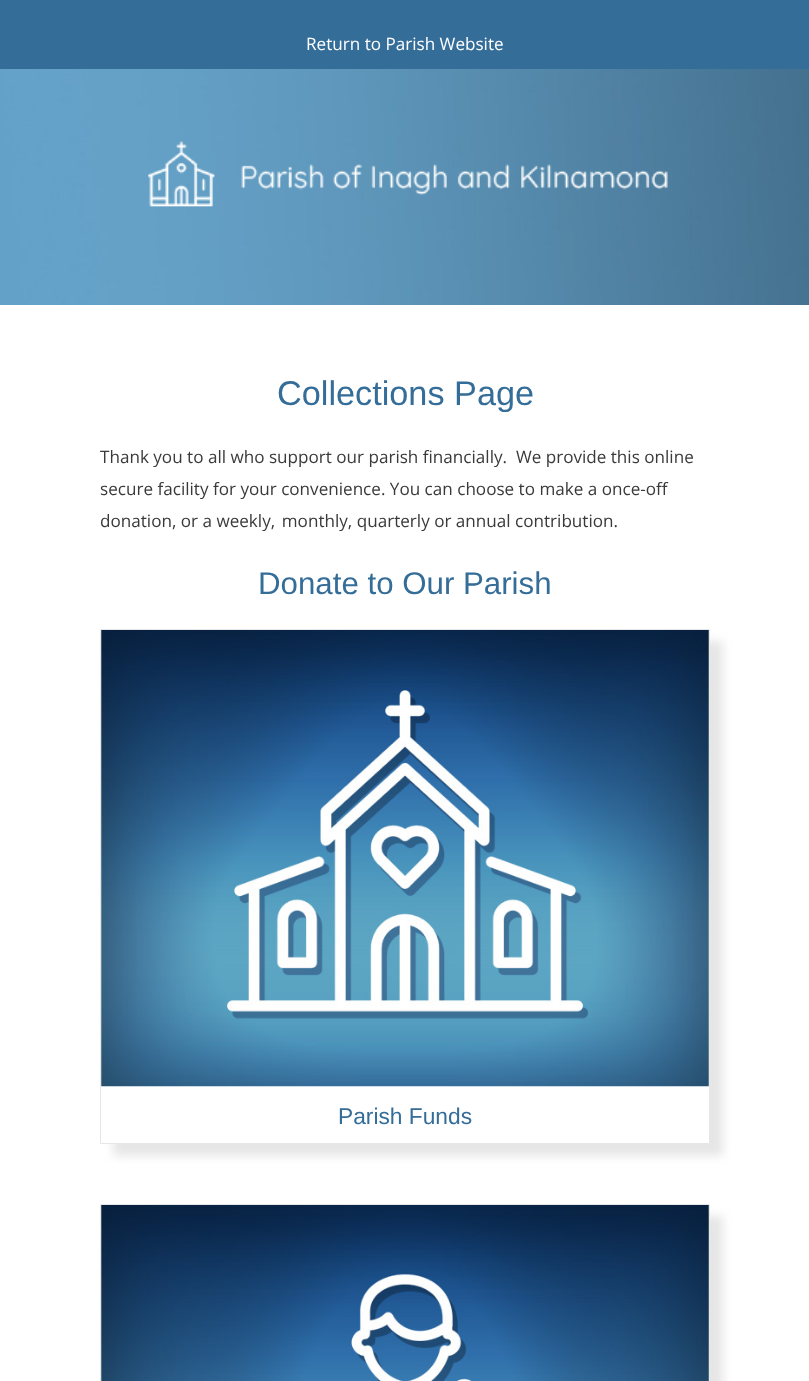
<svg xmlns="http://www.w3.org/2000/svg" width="809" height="1381">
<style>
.a{font:17.1px Open Sans;fill:#fff}
.b{font:34.25px Liberation Sans;fill:#356d99}
.c{font:17.1px Open Sans;fill:#3a3a3a}
.d{font:31.25px Liberation Sans;fill:#356d99}
.e{font:22.75px Liberation Sans;fill:#356d99}
</style>
<defs>
<clipPath id="clip1"><path d="M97 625h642v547h-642zm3 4h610v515h-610z" clip-rule="evenodd"/></clipPath>
</defs>
<rect width="100%" height="100%" fill="#fff"/>
<path fill="#356d99" d="M0 0h809v69H0z"/>
<image href="1.png" x="0" y="69" width="809" height="236"/>
<image href="2.png" x="148" y="141" width="520" height="66"/>
<g clip-path="url(#clip1)">
<path fill="#e6e6e6" filter="blur(5px)" d="M113 641h610v515H113z"/>
</g>
<path fill="none" stroke="#e6e6e6" d="M100.5 629.5h609v514H100.5z"/>
<image href="3.png" x="101" y="630" width="608" height="457"/>
<path fill="#e6e6e6" filter="blur(5px)" d="M113 1216h610v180H113z"/>
<path fill="none" stroke="#e6e6e6" d="M100.5 1204.5h609v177H100.5z"/>
<image href="4.png" x="101" y="1205" width="608" height="176"/>
<text class="a" x="306" y="50">Return to Parish Website</text>
<text class="b" x="277" y="405">Collections Page</text>
<text class="c" xml:space="preserve" x="100" y="463">Thank you to all who support our parish financially.  We provide this online</text>
<text class="c" x="100" y="495">secure facility for your convenience. You can choose to make a once-off</text>
<text class="c" x="100" y="527">donation, or a weekly,  monthly, quarterly or annual contribution.</text>
<text class="d" x="258" y="594">Donate to Our Parish</text>
<text class="e" x="338" y="1124">Parish Funds</text>
</svg>
